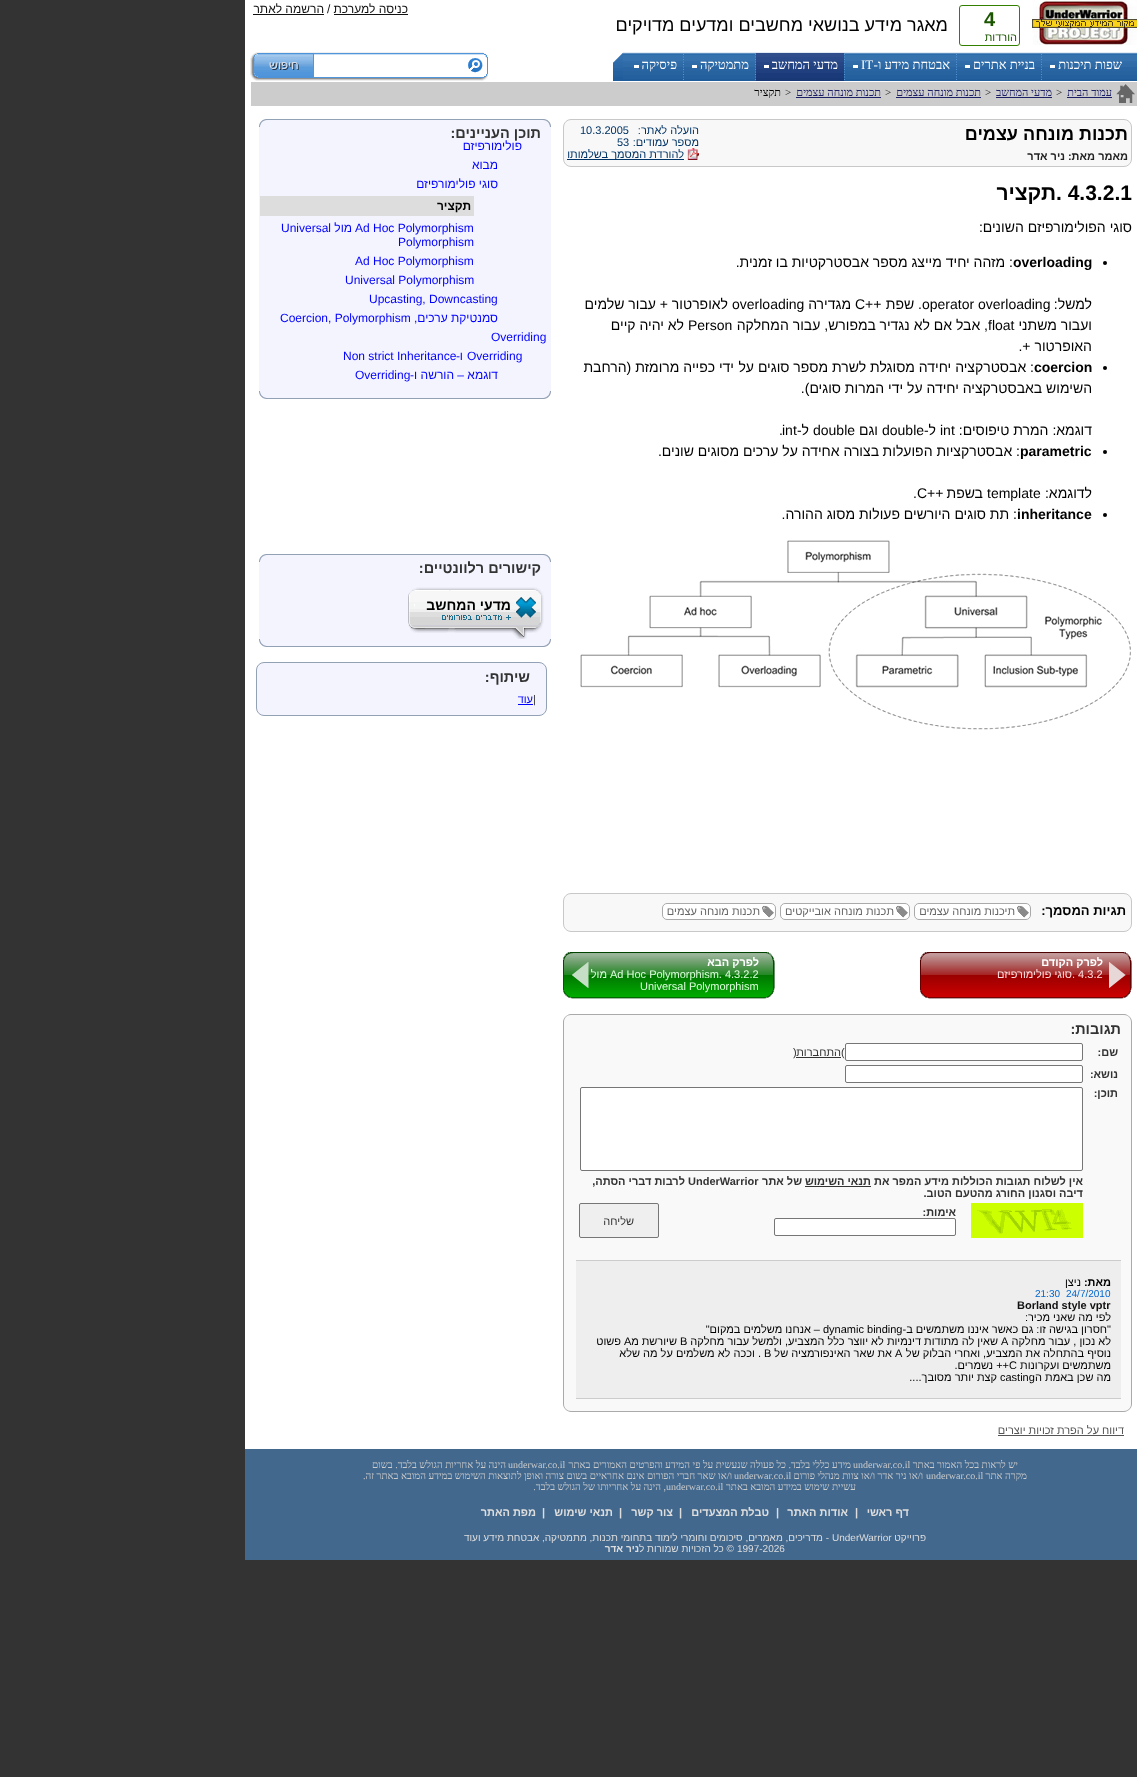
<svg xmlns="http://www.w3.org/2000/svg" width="1137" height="1777">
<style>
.a{font:12px Liberation Sans;direction:rtl;fill:#111}
.b{font:12px Liberation Sans;fill:#111}
.c{font:bold 20px Liberation Sans;fill:#1b5500}
.d{font:11px Liberation Sans;direction:rtl;fill:#1b5500}
.e{font:18px Liberation Sans;direction:rtl;fill:#000}
.f{font:13px Liberation Serif;direction:rtl;fill:#fff}
.g{font:13px Liberation Serif;fill:#fff}
.h{font:11px Liberation Serif;direction:rtl;fill:#1e2066}
.i{font:11px Liberation Serif;fill:#111}
.j{font:11px Liberation Serif;direction:rtl;fill:#000}
.k{font:bold 18px Liberation Sans;direction:rtl;fill:#000}
.l{font:11px Liberation Sans;direction:rtl;fill:#036}
.m{font:11px Liberation Sans;fill:#036}
.n{font:bold 11px Liberation Sans;direction:rtl;fill:#222}
.o{font:bold 21px Liberation Sans;fill:#000}
.p{font:bold 21px Liberation Sans;direction:rtl;fill:#000}
.q{font:14px Liberation Sans;direction:rtl;fill:#000}
.r{font:bold 14px Liberation Sans;fill:#000}
.s{font:14px Liberation Sans;fill:#000}
.t{font:bold 13px Liberation Sans;direction:rtl;fill:#000}
.u{font:11px Liberation Sans;direction:rtl;fill:#666}
.v{font:bold 11px Liberation Sans;direction:rtl;fill:#fff}
.w{font:11px Liberation Sans;fill:#fdd}
.x{font:11px Liberation Sans;direction:rtl;fill:#fdd}
.y{font:11px Liberation Sans;fill:#dfd}
.z{font:11px Liberation Sans;direction:rtl;fill:#dfd}
.a1{font:bold 14.5px Liberation Sans;direction:rtl;fill:#333}
.b1{font:bold 11px Liberation Sans;direction:rtl;fill:#333}
.c1{font:11px Liberation Sans;fill:#333}
.d1{font:11px Liberation Sans;direction:rtl;fill:#333}
.e1{font:bold 11px Liberation Sans;fill:#333}
.f1{font:bold 11px Liberation Sans;direction:rtl;fill:#000}
.g1{font:11px Liberation Sans;direction:rtl;fill:#000}
.h1{font:10px Liberation Sans;fill:#06c}
.i1{font:bold 11px Liberation Sans;fill:#111}
.j1{font:11px Liberation Sans;fill:#000}
.k1{font:11px Liberation Sans;direction:rtl;fill:#555}
.l1{font:12px Liberation Sans;direction:rtl;fill:#00f}
.m1{font:bold 12px Liberation Sans;direction:rtl;fill:#000}
.n1{font:12px Liberation Sans;fill:#00f}
.o1{font:bold 14px Liberation Sans;direction:rtl;fill:#000}
.p1{font:11px Liberation Sans;direction:rtl;fill:#00f}
.q1{font:10px Liberation Serif;direction:rtl;fill:#ccc}
.r1{font:10px Liberation Serif;fill:#ccc}
.s1{font:bold 11px Liberation Sans;direction:rtl;fill:#ddd}
.t1{font:bold 11px Liberation Sans;fill:#ddd}
.u1{font:10px Liberation Sans;direction:rtl;fill:#ddd}
.v1{font:10px Liberation Sans;fill:#ddd}
.w1{font:bold 10px Liberation Sans;direction:rtl;fill:#ddd}
</style>
<rect width="100%" height="100%" fill="#333"/>
<path fill="#fff" d="M245 0h892v1449H245z"/>
<image href="1.png" x="1032" y="0" width="105" height="45"/>
<path fill="#111" d="M334 14h74v1H334z"/>
<path fill="#111" d="M253 14h71v1H253z"/>
<rect fill="none" stroke="#338000" x="959.5" y="5.5" width="60" height="40" rx="2.5"/>
<image href="2.png" x="1041" y="52" width="96" height="29"/>
<image href="3.png" x="1042" y="54" width="95" height="26"/>
<path fill="#fff" d="M1050 65h5v3H1050z"/>
<image href="4.png" x="956" y="52" width="85" height="29"/>
<image href="5.png" x="957" y="54" width="84" height="26"/>
<path fill="#fff" d="M965 65h5v3H965z"/>
<image href="6.png" x="844" y="52" width="112" height="29"/>
<image href="7.png" x="845" y="54" width="111" height="26"/>
<path fill="#fff" d="M853 65h5v3H853z"/>
<image href="8.png" x="755" y="52" width="89" height="29"/>
<image href="9.png" x="756" y="53" width="88" height="28"/>
<path fill="#fff" d="M764 65h5v3H764z"/>
<image href="10.png" x="683" y="52" width="72" height="29"/>
<image href="11.png" x="684" y="54" width="71" height="26"/>
<path fill="#fff" d="M692 65h5v3H692z"/>
<image href="12.png" x="623" y="52" width="60" height="29"/>
<image href="13.png" x="623" y="54" width="60" height="26"/>
<path fill="#fff" d="M634 65h5v3H634z"/>
<image href="14.png" x="613" y="80" width="10" height="1"/>
<image href="15.png" x="613" y="52" width="10" height="28"/>
<image href="16.png" x="313" y="52" width="175" height="29"/>
<image href="17.png" x="250" y="52" width="63" height="29"/>
<path fill="#ccc" d="M251 82h886v24H251z"/>
<image href="18.png" x="1116" y="84" width="19" height="19"/>
<path fill="#1e2066" d="M1067 97h45v1H1067z"/>
<path fill="#1e2066" d="M996 97h56v1H996z"/>
<path fill="#1e2066" d="M896 97h85v1H896z"/>
<path fill="#1e2066" d="M796 97h85v1H796z"/>
<rect fill="#f8f8f8" stroke="#c8c8c8" x="563.5" y="119.5" width="568" height="47" rx="7.5"/>
<image href="19.png" x="687" y="148" width="12" height="12"/>
<path fill="#036" d="M567 159h117v1H567z"/>
<circle fill="#000" cx="1105" cy="263" r="2"/>
<circle fill="#000" cx="1105" cy="368" r="2"/>
<circle fill="#000" cx="1105" cy="452" r="2"/>
<circle fill="#000" cx="1105" cy="515" r="2"/>
<image href="20.png" x="580" y="540" width="551" height="190"/>
<rect fill="#f8f8f8" stroke="#c8c8c8" x="563.5" y="893.5" width="568" height="38" rx="7.5"/>
<rect fill="#fff" x="914" y="903" width="117" height="17" rx="5"/>
<image href="21.png" x="1017" y="905" width="12" height="13"/>
<rect fill="none" stroke="#aaa" x="914.5" y="903.5" width="116" height="16" rx="4.5"/>
<rect fill="#fff" x="780" y="903" width="130" height="17" rx="5"/>
<image href="21.png" x="896" y="905" width="12" height="13"/>
<rect fill="none" stroke="#aaa" x="780.5" y="903.5" width="129" height="16" rx="4.5"/>
<rect fill="#fff" x="662" y="903" width="114" height="17" rx="5"/>
<image href="21.png" x="762" y="905" width="12" height="13"/>
<rect fill="none" stroke="#aaa" x="662.5" y="903.5" width="113" height="16" rx="4.5"/>
<image href="22.png" x="920" y="952" width="212" height="47"/>
<image href="23.png" x="563" y="952" width="212" height="47"/>
<path fill="#f9f9f9" d="M571 1015h553c4 0 7 3 7 7v232h-567v-232c0-4 3-7 7-7z"/>
<path fill="#aaa" fill-rule="evenodd" d="M571 1014h553c4 0 8 4 8 8v232h-569v-232c0-4 4-8 8-8zm0 1h553c4 0 7 3 7 7v232h-567v-232c0-4 3-7 7-7z"/>
<rect fill="#fff" stroke="#767676" x="845.5" y="1043.5" width="237" height="17" rx="1.5"/>
<path fill="#333" d="M796 1057h45v1H796z"/>
<rect fill="#fff" stroke="#767676" x="845.5" y="1065.5" width="237" height="17" rx="1.5"/>
<rect fill="#fff" stroke="#767676" x="580.5" y="1087.5" width="502" height="83" rx="1.5"/>
<path fill="#333" d="M805 1186h66v1H805z"/>
<image href="24.png" x="971" y="1203" width="112" height="35"/>
<rect fill="#fff" stroke="#767676" x="774.5" y="1218.5" width="181" height="17" rx="1.5"/>
<rect fill="#efefef" stroke="#767676" x="579.5" y="1203.5" width="79" height="34" rx="1.5"/>
<path fill="#f9f9f9" d="M564 1254h567v150c0 4-3 7-7 7h-553c-4 0-7-3-7-7z"/>
<path fill="#aaa" fill-rule="evenodd" d="M563 1254h569v150c0 4-4 8-8 8h-553c-4 0-8-4-8-8zm1 0h567v150c0 4-3 7-7 7h-553c-4 0-7-3-7-7z"/>
<path fill="#eee" d="M576 1261h545v137H576z"/>
<path fill="#ccc" d="M576 1260h545v1H576z"/>
<path fill="#ccc" d="M576 1398h545v1H576z"/>
<path fill="#555" d="M998 1435h126v1H998z"/>
<path fill="#f4f4ff" d="M259 127h292v264H259z"/>
<image href="25.png" x="259" y="119" width="292" height="8"/>
<path fill="#ddd" d="M260 196h214v20H260z"/>
<image href="26.png" x="259" y="391" width="292" height="8"/>
<path fill="#f4f4ff" d="M259 562h292v77H259z"/>
<image href="25.png" x="259" y="554" width="292" height="8"/>
<image href="27.png" x="408" y="587" width="136" height="52"/>
<image href="26.png" x="259" y="639" width="292" height="8"/>
<rect fill="#f4f4ff" stroke="#92a1b4" x="256.5" y="662.5" width="290" height="53" rx="7.5"/>
<path fill="#00f" d="M518 704h15v1H518z"/>
<path fill="#42688e" d="M245 1449h892v111H245z"/>
<text class="a" x="408" y="13">כניסה למערכת</text>
<text class="b" x="327" y="13">/</text>
<text class="a" x="324" y="13">הרשמה לאתר</text>
<text class="c" x="984" y="26">4</text>
<text class="d" x="1017" y="41">הורדות</text>
<text class="e" x="948" y="31">מאגר מידע בנושאי מחשבים ומדעים מדויקים</text>
<text class="f" x="1122" y="69">שפות תיכנות</text>
<text class="f" x="1035" y="69">בניית אתרים</text>
<text class="f" x="950" y="69">אבטחת מידע ו-</text>
<text class="g" x="861" y="69">IT</text>
<text class="f" x="838" y="69">מדעי המחשב</text>
<text class="f" x="749" y="69">מתמטיקה</text>
<text class="f" x="677" y="69">פיסיקה</text>
<text class="h" x="1112" y="96">עמוד הבית</text>
<text class="i" x="1056" y="96">&gt;</text>
<text class="h" x="1052" y="96">מדעי המחשב</text>
<text class="i" x="985" y="96">&gt;</text>
<text class="h" x="981" y="96">תכנות מונחה עצמים</text>
<text class="i" x="885" y="96">&gt;</text>
<text class="h" x="881" y="96">תכנות מונחה עצמים</text>
<text class="i" x="785" y="96">&gt;</text>
<text class="j" x="781" y="96">תקציר</text>
<text class="k" x="1128" y="140">תכנות מונחה עצמים</text>
<text class="l" x="699" y="134">הועלה לאתר:</text>
<text class="m" x="580" y="134">10.3.2005</text>
<text class="l" x="699" y="146">מספר עמודים:</text>
<text class="m" x="617" y="146">53</text>
<text class="l" x="684" y="158">להורדת המסמך בשלמותו</text>
<text class="n" x="1128" y="160">מאמר</text>
<text class="n" x="1095" y="160">מאת:</text>
<text class="n" x="1065" y="160">ניר אדר</text>
<text class="o" x="1056" y="200">. 4.3.2.1</text>
<text class="p" x="1056" y="200">תקציר</text>
<text class="q" x="1132" y="232">סוגי הפולימורפיזם השונים:</text>
<text class="r" x="1013" y="267">overloading</text>
<text class="q" x="1013" y="267">: מזהה יחיד מייצג מספר</text>
<text class="q" x="869" y="267">אבסטרקטיות בו זמנית.</text>
<text class="q" x="1092" y="309">למשל:</text>
<text class="s" x="922" y="309">operator overloading</text>
<text class="q" x="922" y="309">. שפת</text>
<text class="s" x="855" y="309">C++</text>
<text class="q" x="851" y="309">מגדירה</text>
<text class="s" x="732" y="309">overloading</text>
<text class="q" x="728" y="309">לאופרטור + עבור שלמים</text>
<text class="q" x="1092" y="330">ועבור משתני</text>
<text class="s" x="988" y="330">float</text>
<text class="q" x="988" y="330">, אבל אם לא נגדיר</text>
<text class="q" x="876" y="330">במפורש, עבור המחלקה</text>
<text class="s" x="688" y="330">Person</text>
<text class="q" x="684" y="330">לא יהיה קיים</text>
<text class="q" x="1092" y="351">האופרטור +.</text>
<text class="r" x="1034" y="372">coercion</text>
<text class="q" x="1034" y="372">: אבסטרקציה יחידה מסוגלת לשרת מספר סוגים על</text>
<text class="q" x="734" y="372">ידי כפייה מרומזת (הרחבת</text>
<text class="q" x="1092" y="393">השימוש באבסטרקציה יחידה על ידי המרות סוגים).</text>
<text class="q" x="1092" y="435">דוגמא: המרת טיפוסים:</text>
<text class="s" x="940" y="435">int</text>
<text class="q" x="936" y="435">ל-</text>
<text class="s" x="882" y="435">double</text>
<text class="q" x="878" y="435">וגם</text>
<text class="s" x="813" y="435">double</text>
<text class="s" x="782" y="435">int</text>
<text class="q" x="809" y="435">ל-</text>
<text class="s" x="779" y="435">.</text>
<text class="r" x="1020" y="456">parametric</text>
<text class="q" x="1020" y="456">: אבסטרקציות הפועלות</text>
<text class="q" x="879" y="456">בצורה אחידה על ערכים מסוגים שונים.</text>
<text class="q" x="1092" y="498">לדוגמא:</text>
<text class="s" x="987" y="498">template</text>
<text class="q" x="983" y="498">בשפת</text>
<text class="s" x="917" y="498">C++</text>
<text class="s" x="913" y="498">.</text>
<text class="r" x="1017" y="519">inheritance</text>
<text class="q" x="1017" y="519">: תת סוגים היורשים</text>
<text class="q" x="900" y="519">פעולות מסוג ההורה.</text>
<text class="t" x="1126" y="915">תגיות המסמך:</text>
<text class="u" x="1015" y="915">תיכנות מונחה עצמים</text>
<text class="u" x="894" y="915">תכנות מונחה אובייקטים</text>
<text class="u" x="760" y="915">תכנות מונחה עצמים</text>
<text class="v" x="1103" y="966">לפרק הקודם</text>
<text class="w" x="1072" y="978">. 4.3.2</text>
<text class="x" x="1072" y="978">סוגי פולימורפיזם</text>
<text class="v" x="759" y="966">לפרק הבא</text>
<text class="y" x="610" y="978">Ad Hoc Polymorphism. 4.3.2.2</text>
<text class="z" x="607" y="978">מול</text>
<text class="y" x="640" y="990">Universal Polymorphism</text>
<text class="a1" x="1121" y="1034">תגובות:</text>
<text class="b1" x="1118" y="1056">שם:</text>
<text class="c1" x="841" y="1056">(</text>
<text class="d1" x="841" y="1056">התחברות</text>
<text class="c1" x="793" y="1056">)</text>
<text class="b1" x="1118" y="1078">נושא:</text>
<text class="b1" x="1118" y="1097">תוכן:</text>
<text class="b1" x="1083" y="1185">אין לשלוח תגובות הכוללות מידע המפר את</text>
<text class="b1" x="871" y="1185">תנאי השימוש</text>
<text class="b1" x="802" y="1185">של אתר</text>
<text class="e1" x="688" y="1185">UnderWarrior</text>
<text class="b1" x="685" y="1185">לרבות דברי הסתה,</text>
<text class="b1" x="1083" y="1197">דיבה וסגנון החורג מהטעם הטוב.</text>
<text class="b1" x="956" y="1216">אימות:</text>
<text class="d1" x="634" y="1225">שליחה</text>
<text class="f1" x="1111" y="1286">מאת:</text>
<text class="g1" x="1081" y="1286">ניצן</text>
<text class="h1" x="1066" y="1297">24/7/2010</text>
<text class="h1" x="1035" y="1297">21:30</text>
<text class="i1" x="1017" y="1309">Borland style vptr</text>
<text class="g1" x="1111" y="1321">לפי מה שאני מכיר:</text>
<text class="g1" x="1111" y="1333">"חסרון בגישה זו: גם כאשר איננו משתמשים ב-</text>
<text class="j1" x="823" y="1333">dynamic binding</text>
<text class="g1" x="820" y="1333">– אנחנו משלמים במקום"</text>
<text class="g1" x="1111" y="1345">לא נכון , עבור מחלקה</text>
<text class="j1" x="1001" y="1345">A</text>
<text class="g1" x="998" y="1345">שאין לה מתודות דינמיות לא יווצר כלל המצביע, ולמשל עבור מחלקה</text>
<text class="j1" x="680" y="1345">B</text>
<text class="j1" x="624" y="1345">A</text>
<text class="g1" x="677" y="1345">שיורשת מ</text>
<text class="g1" x="621" y="1345">פשוט</text>
<text class="g1" x="1111" y="1357">נוסיף בהתחלה את המצביע, ואחרי הבלוק של</text>
<text class="j1" x="895" y="1357">A</text>
<text class="g1" x="892" y="1357">את שאר האינפורמציה של</text>
<text class="j1" x="764" y="1357">B</text>
<text class="g1" x="761" y="1357">. וככה לא משלמים על מה שלא</text>
<text class="g1" x="1111" y="1369">משתמשים ועקרונות</text>
<text class="j1" x="1009" y="1369">C</text>
<text class="g1" x="1009" y="1369">++ נשמרים.</text>
<text class="g1" x="1111" y="1381">מה שכן באמת ה</text>
<text class="j1" x="1000" y="1381">casting</text>
<text class="g1" x="997" y="1381">קצת יותר מסובך....</text>
<text class="k1" x="1124" y="1434">דיווח על הפרת זכויות יוצרים</text>
<text class="a1" x="541" y="138">תוכן העניינים:</text>
<text class="l1" x="522" y="150">פולימורפיזם</text>
<text class="l1" x="498" y="169">מבוא</text>
<text class="l1" x="498" y="188">סוגי פולימורפיזם</text>
<text class="m1" x="471" y="210">תקציר</text>
<text class="n1" x="355" y="232">Ad Hoc Polymorphism</text>
<text class="l1" x="352" y="232">מול</text>
<text class="n1" x="281" y="232">Universal</text>
<text class="n1" x="398" y="246">Polymorphism</text>
<text class="n1" x="355" y="265">Ad Hoc Polymorphism</text>
<text class="n1" x="345" y="284">Universal Polymorphism</text>
<text class="n1" x="369" y="303">Upcasting, Downcasting</text>
<text class="l1" x="498" y="322">סמנטיקת ערכים,</text>
<text class="n1" x="280" y="322">Coercion, Polymorphism</text>
<text class="n1" x="491" y="341">Overriding</text>
<text class="n1" x="467" y="360">Overriding</text>
<text class="l1" x="463" y="360">ו-</text>
<text class="n1" x="343" y="360">Non strict Inheritance</text>
<text class="l1" x="498" y="379">דוגמא – הורשה ו-</text>
<text class="n1" x="355" y="379">Overriding</text>
<text class="a1" x="541" y="573">קישורים רלוונטיים:</text>
<text class="o1" x="511" y="610">מדעי המחשב</text>
<text class="a1" x="530" y="682">שיתוף:</text>
<text class="c1" x="533" y="703">|</text>
<text class="p1" x="533" y="703">עוד</text>
<text class="q1" x="1018" y="1468">יש לראות בכל האמור באתר</text>
<text class="r1" x="853" y="1468">underwar.co.il</text>
<text class="q1" x="851" y="1468">מידע כללי בלבד. כל פעולה שנעשית על פי המידע והפרטים האמורים באתר</text>
<text class="r1" x="508" y="1468">underwar.co.il</text>
<text class="q1" x="506" y="1468">הינה על אחריות הגולש בלבד. בשום</text>
<text class="q1" x="1027" y="1479">מקרה אתר</text>
<text class="r1" x="926" y="1479">underwar.co.il</text>
<text class="q1" x="923" y="1479">ו/או ניר אדר ו/או צוות מנהלי פורום</text>
<text class="r1" x="734" y="1479">underwar.co.il</text>
<text class="q1" x="732" y="1479">ו/או שאר חברי הפורום אינם אחראיים בשום צורה ואופן לתוצאות השימוש במידע המובא באתר זה.</text>
<text class="q1" x="856" y="1490">עשיית שימוש במידע המובא באתר</text>
<text class="r1" x="666" y="1490">underwar.co.il</text>
<text class="q1" x="666" y="1490">, הינה על אחריותו של הגולש בלבד.</text>
<text class="s1" x="909" y="1516">דף ראשי</text>
<text class="t1" x="855" y="1516">|</text>
<text class="s1" x="848" y="1516">אודות האתר</text>
<text class="t1" x="776" y="1516">|</text>
<text class="s1" x="769" y="1516">טבלת המצעדים</text>
<text class="t1" x="679" y="1516">|</text>
<text class="s1" x="673" y="1516">צור קשר</text>
<text class="t1" x="619" y="1516">|</text>
<text class="s1" x="613" y="1516">תנאי שימוש</text>
<text class="t1" x="542" y="1516">|</text>
<text class="s1" x="536" y="1516">מפת האתר</text>
<text class="u1" x="926" y="1541">פרוייקט</text>
<text class="v1" x="832" y="1541">UnderWarrior</text>
<text class="u1" x="829" y="1541">- מדריכים, מאמרים, סיכומים וחומרי לימוד בתחומי תכנות, מתמטיקה, אבטחת מידע ועוד</text>
<text class="v1" x="737" y="1552">1997-2026</text>
<text class="u1" x="734" y="1552">© כל הזכויות שמורות ל</text>
<text class="w1" x="639" y="1552">ניר אדר</text>
</svg>
